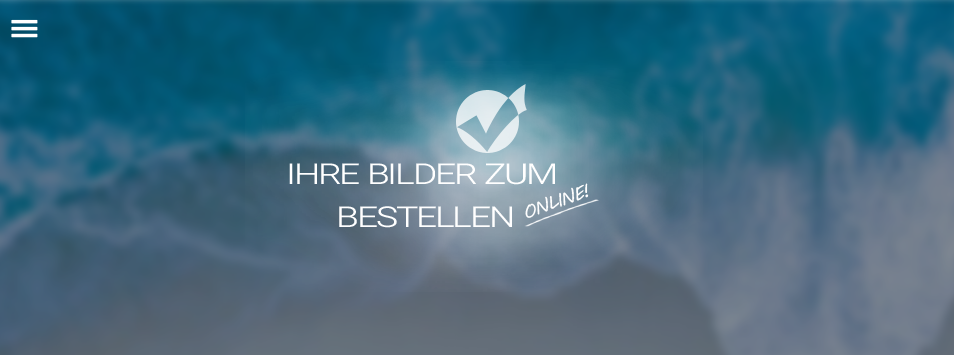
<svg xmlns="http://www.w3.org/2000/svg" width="954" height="355">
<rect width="100%" height="100%" fill="#fff"/>
<image href="1.png" x="0" y="0" width="954" height="355"/>
<image href="2.png" x="245" y="61" width="458" height="231"/>
<image href="3.png" x="11" y="19" width="27" height="19"/>
</svg>
